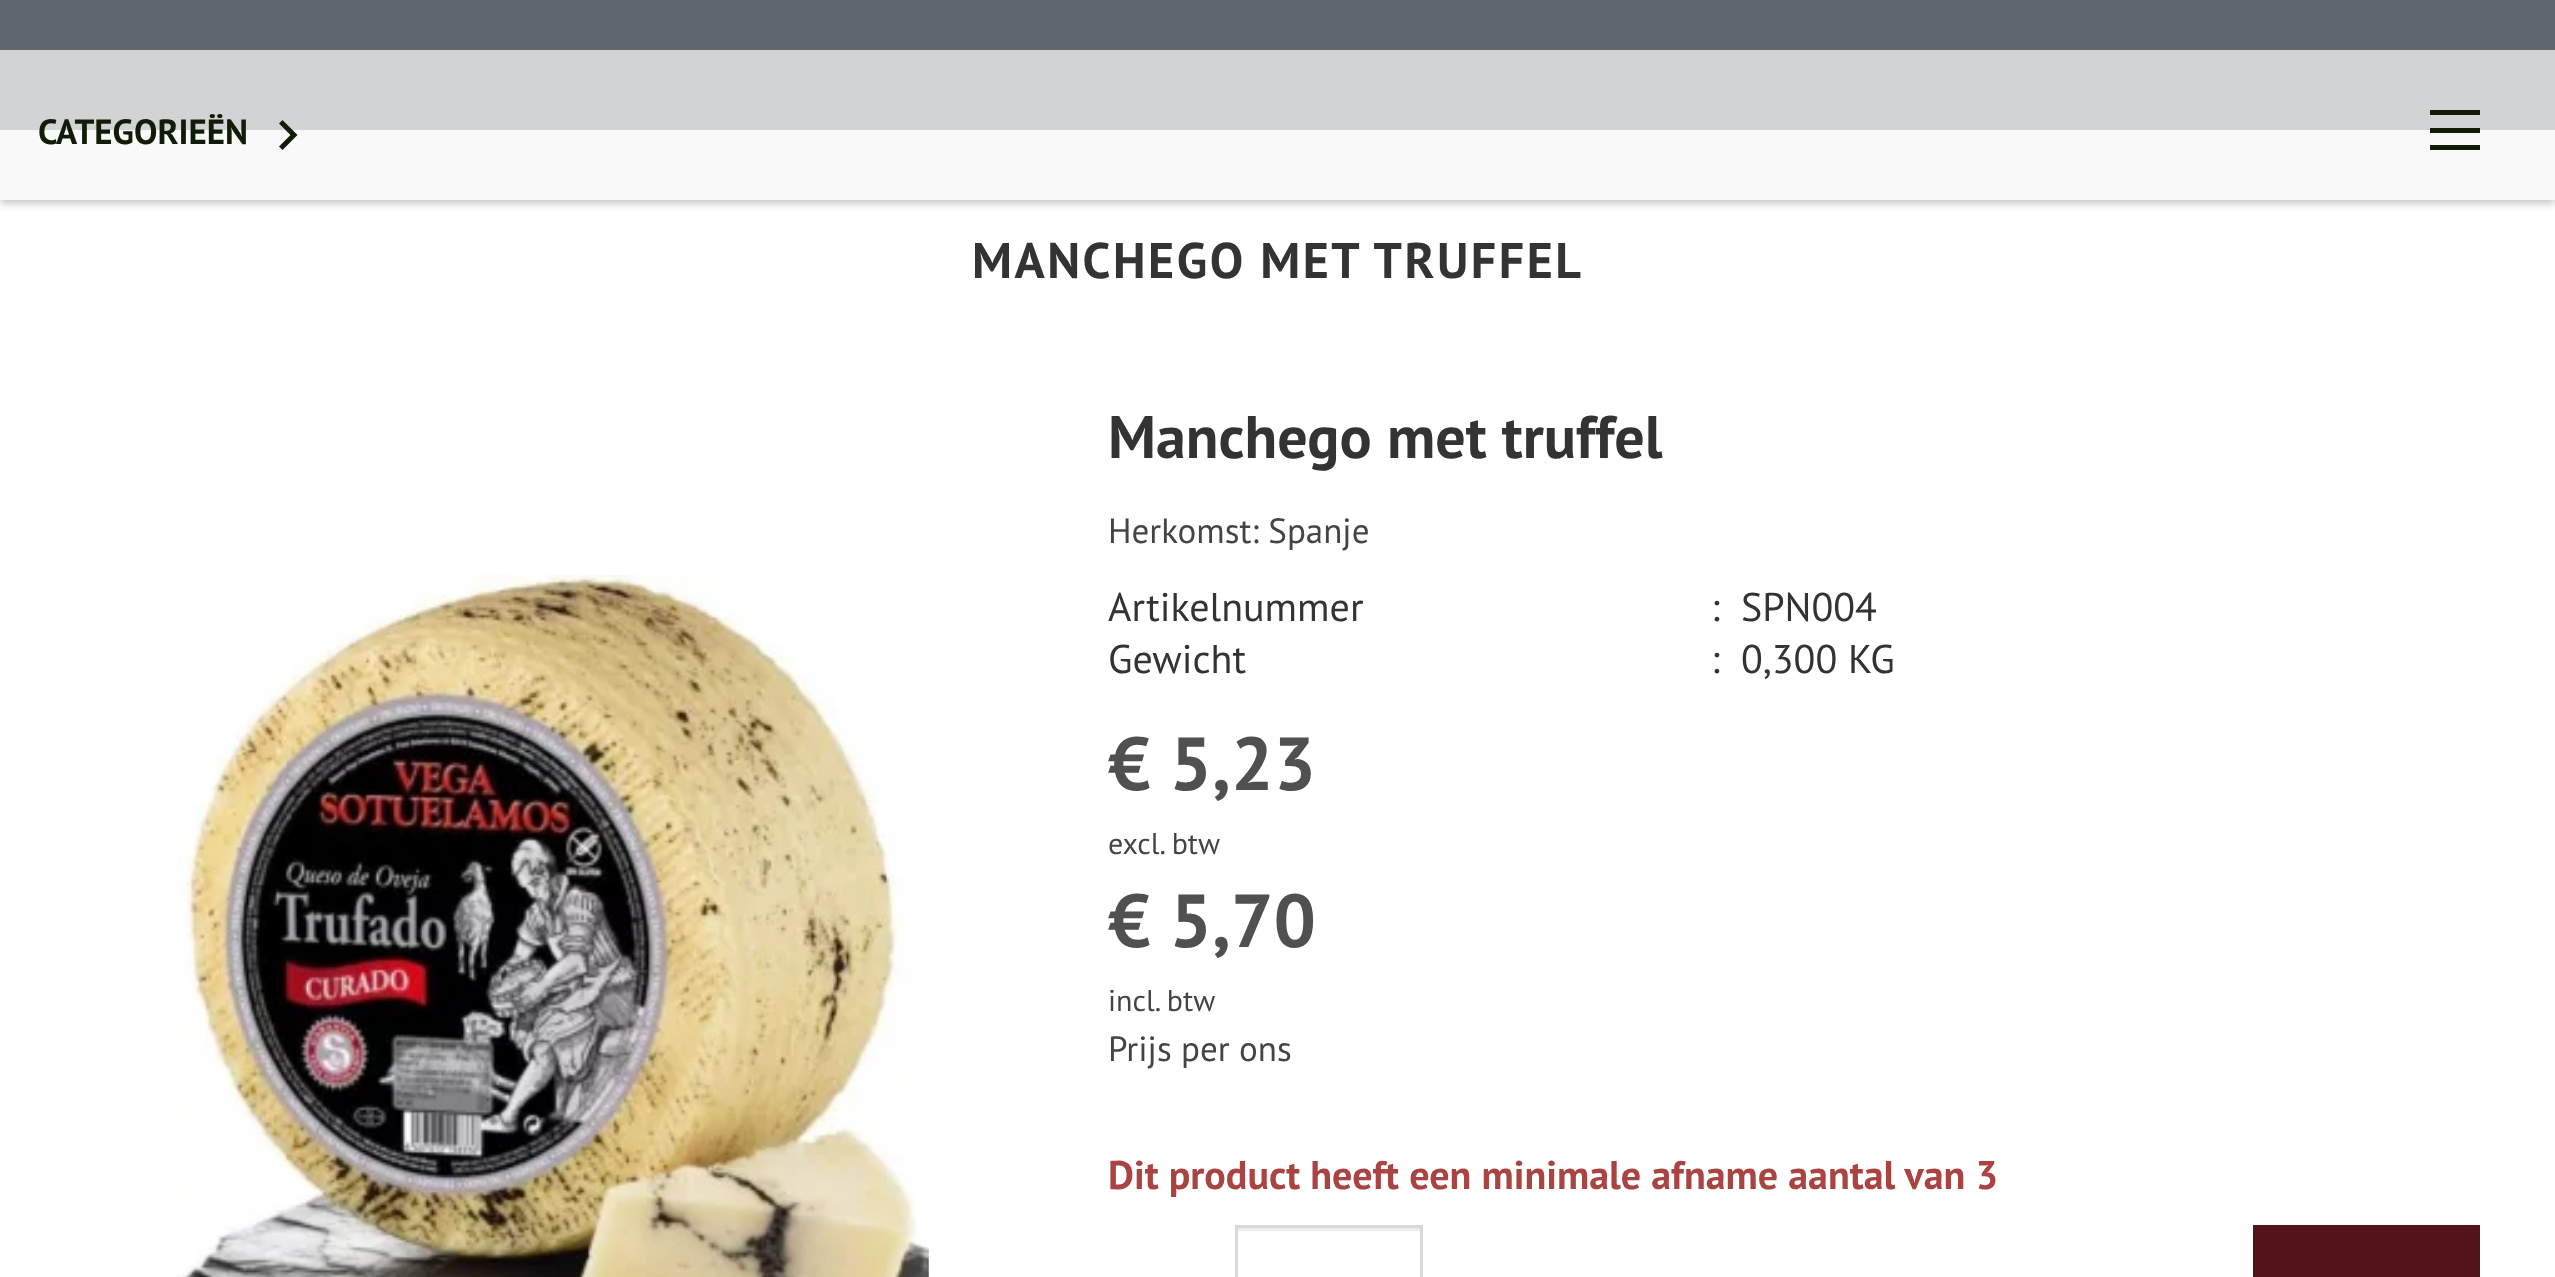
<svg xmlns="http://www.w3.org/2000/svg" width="2555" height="1277">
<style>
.a{font:bold 35px PT Sans;fill:#101c07}
.b{font:bold 50px PT Sans;letter-spacing:2.5px;fill:#333}
.c{font:bold 60px PT Sans;fill:#333}
.d{font:35px PT Sans;fill:#444}
.e{font:40px PT Sans;fill:#333}
.f{font:bold 75px PT Sans;fill:#505050}
.g{font:30px PT Sans;fill:#444}
.h{font:bold 40px PT Sans;fill:#a94442}
</style>
<defs>
<clipPath id="clip1"><path d="M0 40h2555v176h-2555zm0 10h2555v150h-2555z" clip-rule="evenodd"/></clipPath>
</defs>
<rect width="100%" height="100%" fill="#fff"/>
<path fill="#f9f9f9" d="M0 130h2555v70H0z"/>
<path fill="#5e656c" d="M0 0h2555v50H0z"/>
<path fill="#d1d3d4" d="M0 50h2555v80H0z"/>
<g clip-path="url(#clip1)">
<path fill="#80808080" filter="blur(4px)" d="M0 53h2555v150H0z"/>
</g>
<path fill="#101c07" d="M279 146.5l11.5-11.5l-11.5-11.5l3.5-3.5l15 15l-15 15z"/>
<path fill="#101c07" d="M2430 110h50v5H2430z"/>
<path fill="#101c07" d="M2430 128h50v5H2430z"/>
<path fill="#101c07" d="M2430 145h50v5H2430z"/>
<image href="1.png" x="177" y="575" width="752" height="702"/>
<path fill="#ececec" d="M1238 1228h182v3H1238z"/>
<path fill="none" stroke="#d9d9d9" stroke-width="3" d="M1236.5 1226.5h185v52H1236.5z"/>
<path fill="#54121a" d="M2253 1225h227v52H2253z"/>
<text class="a" x="38" y="144">CATEGORIEËN</text>
<text class="b" x="972" y="278">MANCHEGO MET TRUFFEL</text>
<text class="c" x="1108" y="458">Manchego met truffel</text>
<text class="d" x="1108" y="543">Herkomst: Spanje</text>
<text class="e" x="1108" y="621">Artikelnummer</text>
<text class="e" x="1711" y="621">:</text>
<text class="e" x="1741" y="621">SPN004</text>
<text class="e" x="1108" y="673">Gewicht</text>
<text class="e" x="1711" y="673">:</text>
<text class="e" x="1741" y="673">0,300 KG</text>
<text class="f" x="1108" y="790">€ 5,23</text>
<text class="g" x="1108" y="854">excl. btw</text>
<text class="f" x="1108" y="947">€ 5,70</text>
<text class="g" x="1108" y="1011">incl. btw</text>
<text class="d" x="1108" y="1061">Prijs per ons</text>
<text class="h" x="1108" y="1189">Dit product heeft een minimale afname aantal van 3</text>
</svg>
